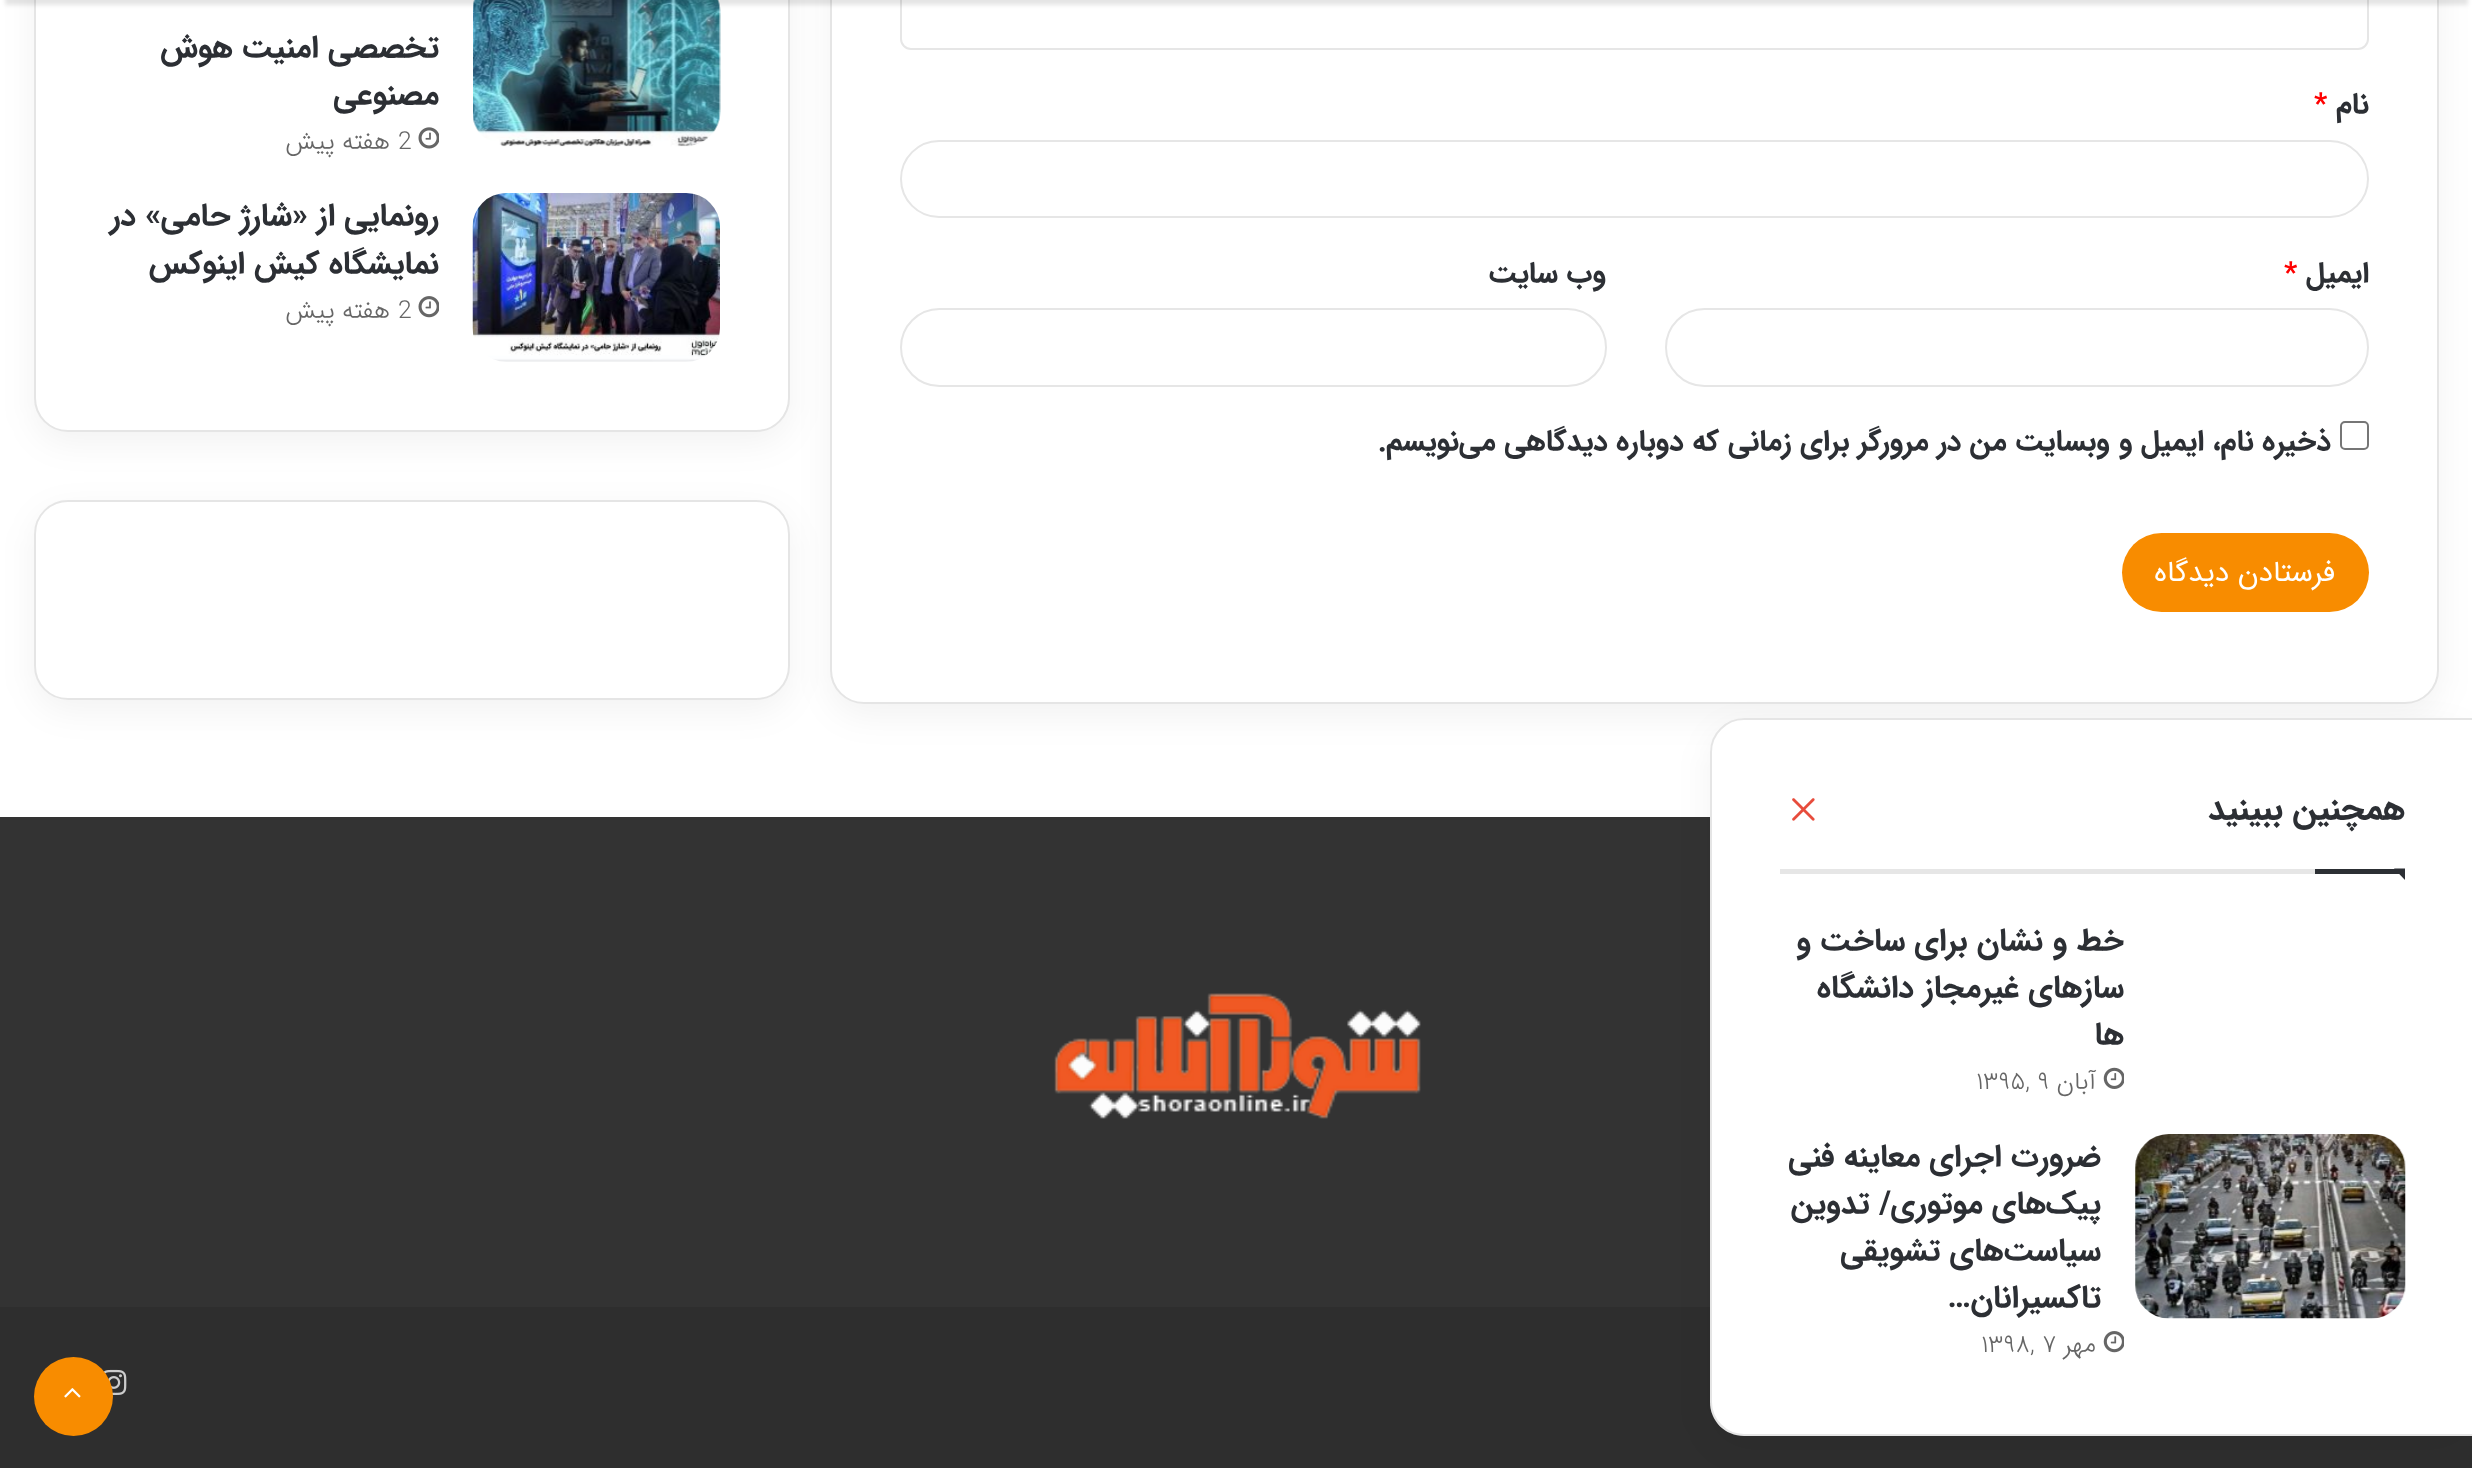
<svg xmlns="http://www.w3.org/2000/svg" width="2472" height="1468">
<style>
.a{font:bold 29.25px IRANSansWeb;direction:rtl;fill:#2c2f34}
.b{font:bold 29.25px IRANSansWeb;fill:#f00}
.c{font:29.25px IRANSansWeb;direction:rtl;fill:#fff}
.d{font:bold 31.5px IRANSansWeb;direction:rtl;fill:#2c2f34}
.e{font:300 24.75px IRANSansWeb;fill:#666}
.f{font:300 24.75px IRANSansWeb;direction:rtl;fill:#666}
.g{font:bold 33.75px IRANSansWeb;direction:rtl;fill:#2c2f34}
</style>
<rect width="100%" height="100%" fill="#fff"/>
<rect fill="#0000000d" filter="blur(17px)" x="830" y="-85" width="1609" height="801" rx="34"/>
<rect fill="#fff" stroke="#e5e5e5" stroke-width="2" x="831" y="-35" width="1607" height="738" rx="33"/>
<rect fill="none" stroke="#e6e6e6" stroke-width="2" x="901" y="-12" width="1467" height="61" rx="10"/>
<rect fill="#0000000d" filter="blur(17px)" x="34" y="-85" width="756" height="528" rx="34"/>
<rect fill="#fff" stroke="#e5e5e5" stroke-width="2" x="35" y="-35" width="754" height="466" rx="33"/>
<image href="1.png" x="473" y="0" width="248" height="147"/>
<path fill="#0000001a" filter="blur(2px)" d="M5 -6h2463v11H5z"/>
<rect fill="none" stroke="#e6e6e6" stroke-width="2" x="901" y="141" width="1467" height="76" rx="38"/>
<rect fill="none" stroke="#e6e6e6" stroke-width="2" x="1666" y="309" width="702" height="77" rx="38.5"/>
<rect fill="none" stroke="#e6e6e6" stroke-width="2" x="901" y="309" width="705" height="77" rx="38.5"/>
<rect fill="none" stroke="#767676" stroke-width="2" x="2341" y="422" width="27" height="27" rx="4"/>
<rect fill="#f88c00" x="2122" y="533" width="247" height="79" rx="39.5"/>
<image href="2.png" x="418" y="127" width="21" height="22"/>
<image href="3.png" x="472" y="193" width="248" height="169"/>
<image href="4.png" x="418" y="296" width="21" height="22"/>
<rect fill="#0000000d" filter="blur(17px)" x="34" y="511" width="756" height="200" rx="34"/>
<rect fill="#fff" x="34" y="500" width="756" height="200" rx="34"/>
<rect fill="none" stroke="#0000001a" stroke-width="2" x="35" y="501" width="754" height="198" rx="33"/>
<path fill="#333" d="M0 817h1710v490H0z"/>
<path fill="#2e2e2e" d="M0 1307h2472v161H0z"/>
<rect fill="#0000000d" filter="blur(17px)" x="1710" y="729" width="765" height="718" rx="34"/>
<path fill="#fff" d="M1744 718h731v718h-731c-19 0-34-15-34-34v-650c0-19 15-34 34-34z"/>
<path fill="none" stroke="#0000001a" stroke-width="2" d="M1744 719h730v716h-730c-18 0-33-15-33-33v-650c0-18 15-33 33-33z"/>
<path fill="#e6e6e6" d="M1780 869h535v5H1780z"/>
<image href="5.png" x="1792" y="798" width="23" height="23"/>
<path fill="#2c2f34" d="M2394 868.5h11v11.5z"/>
<path fill="#2c2f34" d="M2315 869h90v5H2315z"/>
<image href="6.png" x="2103" y="1067" width="21" height="22"/>
<image href="7.png" x="2135" y="1134" width="271" height="185"/>
<image href="8.png" x="2103" y="1331" width="21" height="22"/>
<image href="9.png" x="1054" y="993" width="367" height="126"/>
<image href="10.png" x="103" y="1369" width="24" height="26"/>
<circle fill="#f88c00" cx="73.5" cy="1396.5" r="39.5"/>
<image href="11.png" x="64" y="1388" width="17" height="10"/>
<text class="a" x="2369" y="113">نام</text>
<text class="b" x="2314" y="113">*</text>
<text class="a" x="2369" y="282">ایمیل</text>
<text class="b" x="2284" y="282">*</text>
<text class="a" x="1606" y="282">وب‌ سایت</text>
<text class="a" x="2331" y="450">ذخیره نام، ایمیل و وبسایت من در مرورگر برای زمانی که دوباره دیدگاهی می‌نویسم.</text>
<text class="c" x="2335" y="581">فرستادن دیدگاه</text>
<text class="d" x="439" y="57">تخصصی امنیت هوش</text>
<text class="d" x="439" y="104">مصنوعی</text>
<text class="e" x="398" y="149">2</text>
<text class="f" x="390" y="149">هفته پیش</text>
<text class="d" x="439" y="225">رونمایی از «شارژ حامی» در</text>
<text class="d" x="439" y="273">نمایشگاه کیش اینوکس</text>
<text class="e" x="398" y="318">2</text>
<text class="f" x="390" y="318">هفته پیش</text>
<text class="g" x="2405" y="819">همچنین ببینید</text>
<text class="d" x="2124" y="950">خط و نشان برای ساخت و</text>
<text class="d" x="2124" y="997">سازهای غیرمجاز دانشگاه</text>
<text class="d" x="2124" y="1044">ها</text>
<text class="f" x="2096" y="1089">آبان</text>
<text class="e" x="1976" y="1089">۱۳۹۵, ۹</text>
<text class="d" x="2101" y="1166">ضرورت اجرای معاینه فنی</text>
<text class="d" x="2101" y="1213">پیک‌های موتوری/ تدوین</text>
<text class="d" x="2101" y="1260">سیاست‌های تشویقی</text>
<text class="d" x="2101" y="1307">تاکسیرانان…</text>
<text class="f" x="2096" y="1352">مهر</text>
<text class="e" x="1981" y="1352">۱۳۹۸, ۷</text>
</svg>
